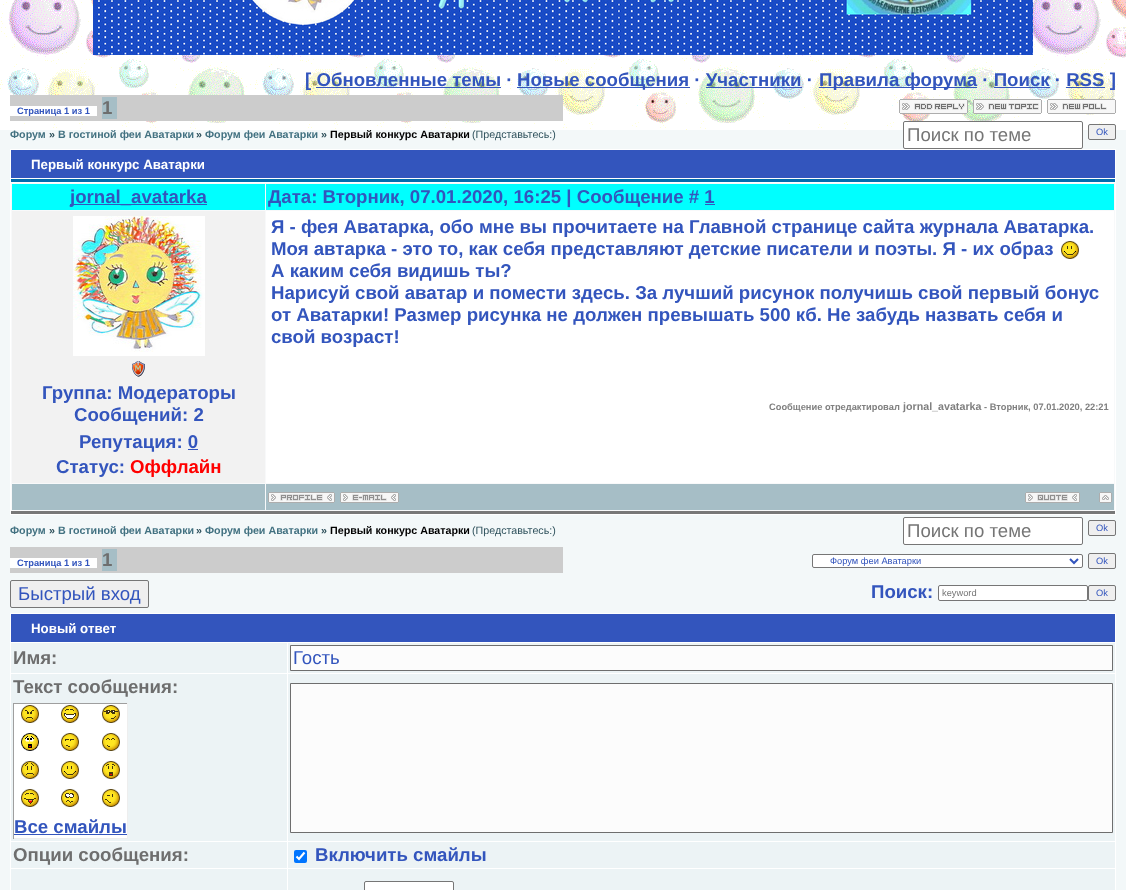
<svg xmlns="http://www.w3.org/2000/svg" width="1126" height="890">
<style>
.a{font:bold 18.65px Liberation Sans;fill:#3355bd}
.b{font:bold 9.3px Liberation Sans;fill:#3355bd}
.c{font:bold 18.65px Liberation Sans;fill:#6e6e6e}
.d{font:bold 10.7px Liberation Sans;fill:#427181}
.e{font:bold 10.7px Liberation Sans;fill:#2f515c}
.f{font:bold 10.7px Liberation Sans;fill:#000}
.g{font:10.7px Liberation Sans;fill:#2f515c}
.h{font:18.65px Liberation Sans;fill:#757575}
.i{font:9.3px Liberation Sans;fill:#3355bd}
.j{font:bold 13.3px Liberation Sans;fill:#fff}
.k{font:bold 9.3px Liberation Sans;fill:#808080}
.l{font:bold 10.7px Liberation Sans;fill:#808080}
.m{font:bold 18.65px Liberation Sans;fill:#f00}
.n{font:18.65px Liberation Sans;fill:#3355bd}
.o{font:9.3px Liberation Sans;fill:#757575}
</style>
<rect width="100%" height="100%" fill="#f3f8f9"/>
<image href="1.png" x="0" y="0" width="1126" height="130"/>
<image href="2.png" x="93" y="0" width="940" height="55"/>
<path fill="#3355bd" d="M517 87h173v1H517z"/>
<path fill="#3355bd" d="M819 87h158v1H819z"/>
<path fill="#3355bd" d="M316 87h185v1H316z"/>
<path fill="#3355bd" d="M706 87h96v1H706z"/>
<path fill="#3355bd" d="M994 87h56v1H994z"/>
<path fill="#3355bd" d="M1066 87h39v1H1066z"/>
<path fill="#ccc" d="M10 95h553v26H10z"/>
<path fill="#fff" d="M10 106h87v10H10z"/>
<path fill="#a6bec6" d="M102 97h15v22H102z"/>
<image href="3.png" x="899" y="99" width="69" height="15"/>
<image href="4.png" x="973" y="99" width="69" height="15"/>
<image href="5.png" x="1047" y="99" width="69" height="15"/>
<rect fill="#fff" stroke="#767676" x="903.5" y="121.5" width="179" height="27" rx="1.5"/>
<rect fill="#efefef" stroke="#767676" x="1088.5" y="124.5" width="27" height="15" rx="1.5"/>
<path fill="#fff" d="M10 149h1106v366H10z"/>
<path fill="#3355bd" d="M11 150h1104v28H11z"/>
<path fill="#016cac" d="M11 179h1104v3H11z"/>
<path fill="#f8f9fa" d="M11 183h1104v328H11z"/>
<path fill="#787878" d="M11 511h1104v3H11z"/>
<path fill="#0ff" d="M12 184h253v26H12z"/>
<path fill="#3355bd" d="M70 204h137v1H70z"/>
<path fill="#0ff" d="M266 184h848v26H266z"/>
<path fill="#3355bd" d="M705 204h10v1H705z"/>
<path fill="#fff" d="M266 211h848v272H266z"/>
<image href="6.png" x="1061" y="241" width="18" height="18"/>
<path fill="#f2f2f2" d="M12 211h253v272H12z"/>
<image href="7.png" x="73" y="216" width="132" height="140"/>
<image href="8.png" x="132" y="361" width="13" height="16"/>
<path fill="#3355bd" d="M188 449h10v1H188z"/>
<path fill="#a6bec6" d="M12 484h253v26H12z"/>
<path fill="#a6bec6" d="M266 484h848v26H266z"/>
<image href="9.png" x="268" y="492" width="67" height="11"/>
<image href="10.png" x="340" y="492" width="59" height="11"/>
<image href="11.png" x="1025" y="492" width="55" height="11"/>
<image href="12.png" x="1099" y="492" width="13" height="11"/>
<rect fill="#fff" stroke="#767676" x="903.5" y="517.5" width="179" height="27" rx="1.5"/>
<rect fill="#efefef" stroke="#767676" x="1088.5" y="520.5" width="27" height="15" rx="1.5"/>
<path fill="#ccc" d="M10 547h553v26H10z"/>
<path fill="#fff" d="M10 558h87v10H10z"/>
<path fill="#a6bec6" d="M102 549h15v22H102z"/>
<rect fill="#fff" stroke="#767676" x="812.5" y="554.5" width="270" height="13" rx="1.5"/>
<path fill="none" stroke="#3355bd" stroke-width="2" d="M1070 559l4 4l4-4"/>
<rect fill="#efefef" stroke="#767676" x="1088.5" y="553.5" width="27" height="15" rx="1.5"/>
<rect fill="#efefef" stroke="#767676" x="10.5" y="580.5" width="138" height="27" rx="1.5"/>
<rect fill="#fff" stroke="#767676" x="938.5" y="585.5" width="149" height="15" rx="1.5"/>
<rect fill="#efefef" stroke="#767676" x="1088.5" y="585.5" width="27" height="15" rx="1.5"/>
<path fill="#fff" d="M10 613h1106v277H10z"/>
<path fill="#3355bd" d="M11 614h1104v28H11z"/>
<path fill="#ecf3f5" d="M11 643h276v30H11z"/>
<path fill="#ecf3f5" d="M288 643h827v30H288z"/>
<path fill="#fcfcfc" stroke="#6e6e6e" d="M290.5 645.5h822v25H290.5z"/>
<path fill="#ecf3f5" d="M11 674h276v167H11z"/>
<path fill="#fff" d="M14 704h113v134H14z"/>
<path fill="#9f9f9f" d="M13 703h115v1H13z"/>
<path fill="#eee" d="M127 703h1v136H127z"/>
<path fill="#eee" d="M13 838h115v1H13z"/>
<path fill="#9f9f9f" d="M13 703h1v136H13z"/>
<image href="13.png" x="21" y="705" width="18" height="18"/>
<image href="14.png" x="61" y="705" width="18" height="18"/>
<image href="15.png" x="102" y="705" width="18" height="18"/>
<image href="16.png" x="21" y="733" width="18" height="18"/>
<image href="17.png" x="61" y="733" width="18" height="18"/>
<image href="18.png" x="102" y="733" width="18" height="18"/>
<image href="19.png" x="21" y="761" width="18" height="18"/>
<image href="6.png" x="61" y="761" width="18" height="18"/>
<image href="20.png" x="102" y="761" width="18" height="18"/>
<image href="21.png" x="21" y="789" width="18" height="18"/>
<image href="22.png" x="61" y="789" width="18" height="18"/>
<image href="23.png" x="102" y="789" width="18" height="18"/>
<path fill="#3355bd" d="M14 834h113v1H14z"/>
<path fill="#ecf3f5" d="M288 674h827v167H288z"/>
<path fill="#fcfcfc" stroke="#6e6e6e" d="M290.5 683.5h822v149H290.5z"/>
<path fill="#ecf3f5" d="M11 842h276v26H11z"/>
<path fill="#ecf3f5" d="M288 842h827v26H288z"/>
<rect fill="#0075ff" x="294" y="850" width="13" height="13" rx="2"/>
<path fill="none" stroke="#fff" stroke-width="2.1" d="M296.5 856.5l2.5 2.5l5.5-6.5"/>
<path fill="#ecf3f5" d="M11 869h276v21H11z"/>
<path fill="#ecf3f5" d="M288 869h827v21H288z"/>
<rect fill="#fff" stroke="#767676" x="364.5" y="881.5" width="89" height="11" rx="1.5"/>
<text class="a" x="305" y="86">[ Обновленные темы ·</text>
<text class="a" x="517" y="86">Новые сообщения · Участники ·</text>
<text class="a" x="819" y="86">Правила форума · Поиск · RSS ]</text>
<text class="b" x="17" y="114">Страница 1 из 1</text>
<text class="c" x="102" y="114">1</text>
<text class="d" x="10" y="138">Форум</text>
<text class="e" x="49" y="138">»</text>
<text class="d" x="58" y="138">В гостиной феи Аватарки</text>
<text class="e" x="196" y="138">»</text>
<text class="d" x="205" y="138">Форум феи Аватарки</text>
<text class="e" x="321" y="138">»</text>
<text class="f" x="330" y="138">Первый конкурс Аватарки</text>
<text class="g" x="472" y="138">(Представьтесь:)</text>
<text class="h" x="907" y="141">Поиск по теме</text>
<text class="i" x="1096" y="135">Ok</text>
<text class="j" x="31" y="169">Первый конкурс Аватарки</text>
<text class="a" x="70" y="203">jornal_avatarka</text>
<text class="a" x="268" y="203">Дата: Вторник, 07.01.2020, 16:25 | Сообщение # 1</text>
<text class="a" x="271" y="233">Я - фея Аватарка, обо мне вы прочитаете на Главной странице сайта журнала Аватарка.</text>
<text class="a" x="271" y="255">Моя автарка - это то, как себя представляют детские писатели и поэты. Я - их образ</text>
<text class="a" x="271" y="277">А каким себя видишь ты?</text>
<text class="a" x="271" y="299">Нарисуй свой аватар и помести здесь. За лучший рисунок получишь свой первый бонус</text>
<text class="a" x="271" y="321">от Аватарки! Размер рисунка не должен превышать 500 кб. Не забудь назвать себя и</text>
<text class="a" x="271" y="343">свой возраст!</text>
<text class="k" x="769" y="410">Сообщение отредактировал</text>
<text class="l" x="903" y="410">jornal_avatarka</text>
<text class="k" x="984" y="410">- Вторник, 07.01.2020, 22:21</text>
<text class="a" x="42" y="399">Группа: Модераторы</text>
<text class="a" x="74" y="421">Сообщений: 2</text>
<text class="a" x="79" y="448">Репутация: 0</text>
<text class="a" x="56" y="473">Статус:</text>
<text class="m" x="130" y="473">Оффлайн</text>
<text class="d" x="10" y="534">Форум</text>
<text class="e" x="49" y="534">»</text>
<text class="d" x="58" y="534">В гостиной феи Аватарки</text>
<text class="e" x="196" y="534">»</text>
<text class="d" x="205" y="534">Форум феи Аватарки</text>
<text class="e" x="321" y="534">»</text>
<text class="f" x="330" y="534">Первый конкурс Аватарки</text>
<text class="g" x="472" y="534">(Представьтесь:)</text>
<text class="h" x="907" y="537">Поиск по теме</text>
<text class="i" x="1096" y="531">Ok</text>
<text class="b" x="17" y="566">Страница 1 из 1</text>
<text class="c" x="102" y="566">1</text>
<text class="i" x="830" y="564">Форум феи Аватарки</text>
<text class="i" x="1096" y="564">Ok</text>
<text class="n" x="18" y="600">Быстрый вход</text>
<text class="a" x="871" y="598">Поиск:</text>
<text class="o" x="942" y="596">keyword</text>
<text class="i" x="1096" y="596">Ok</text>
<text class="j" x="31" y="633">Новый ответ</text>
<text class="c" x="13" y="664">Имя:</text>
<text class="n" x="293" y="664">Гость</text>
<text class="c" x="13" y="693">Текст сообщения:</text>
<text class="a" x="14" y="833">Все смайлы</text>
<text class="c" x="13" y="861">Опции сообщения:</text>
<text class="a" x="315" y="861">Включить смайлы</text>
</svg>
